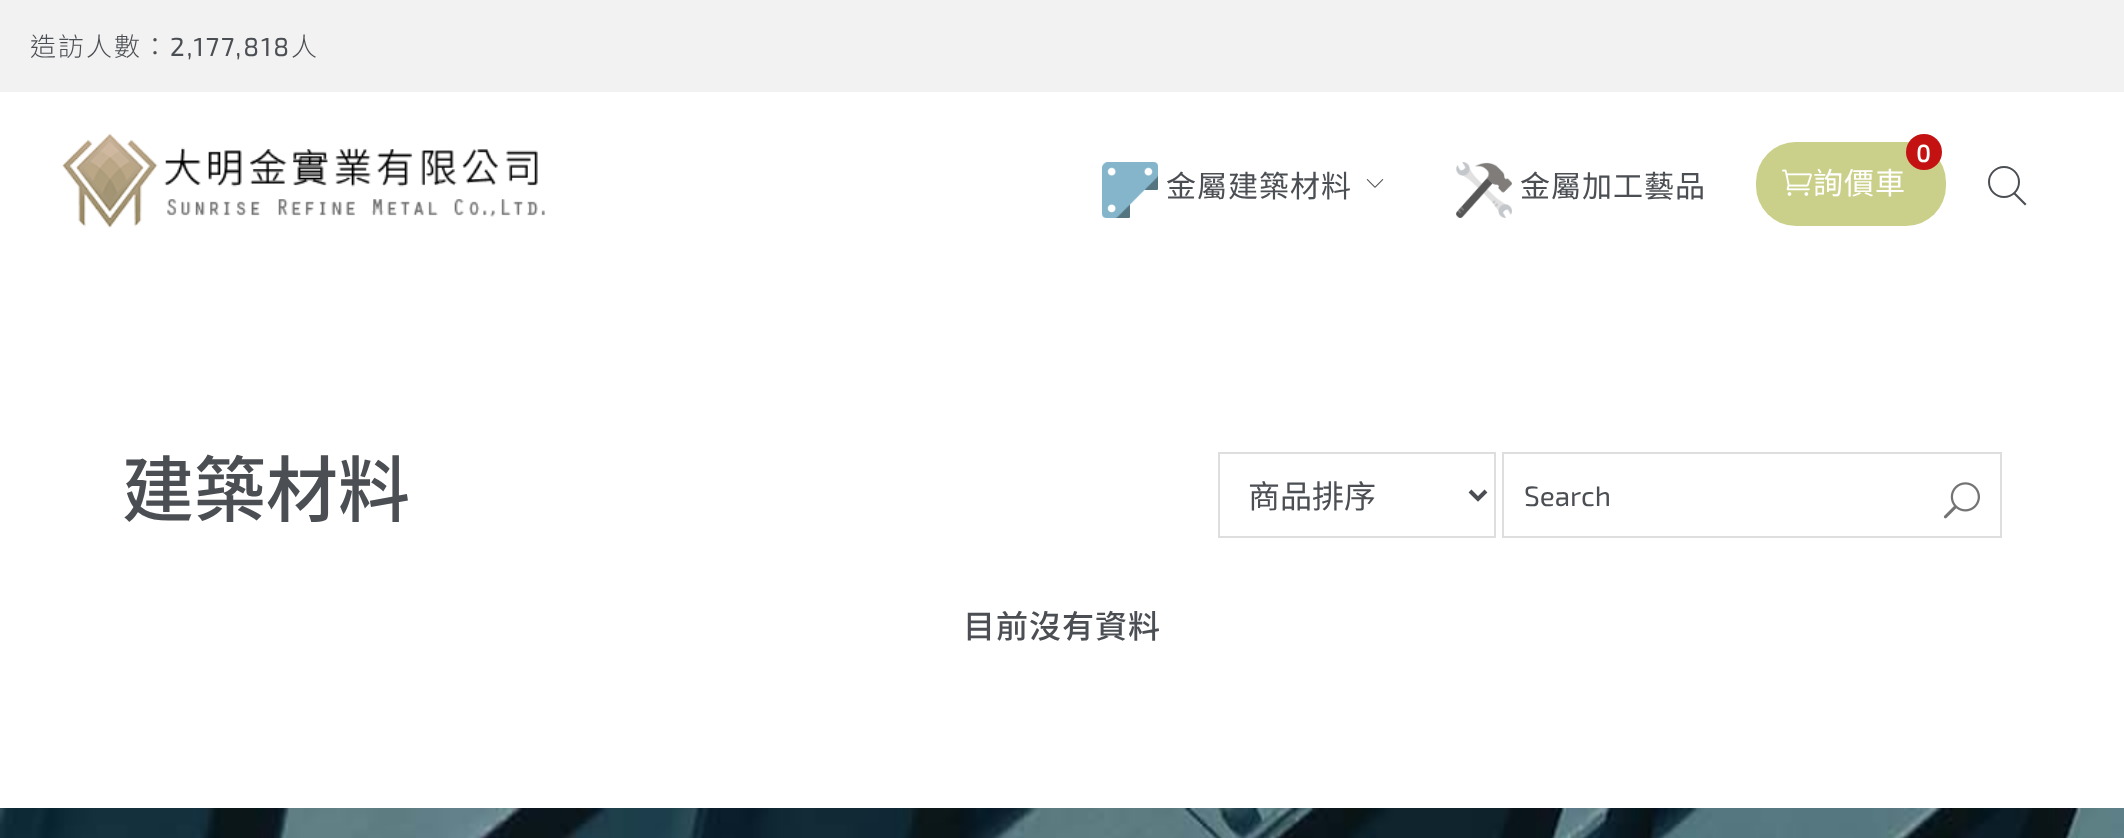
<svg xmlns="http://www.w3.org/2000/svg" width="2124" height="838">
<style>
.a{font:300 26px Noto Sans TC;letter-spacing:2px;fill:#4b4e53}
.b{font:26px 'Exo 2';letter-spacing:2px;fill:#4b4e53}
.c{font:30px Noto Sans TC;letter-spacing:1px;fill:#4b4e53}
.d{font:bold 24px 'Exo 2';letter-spacing:1px;fill:#fff}
.e{font:30px Noto Sans TC;letter-spacing:1px;fill:#fff}
.f{font:500 72px Noto Sans TC;fill:#4b4e53}
.g{font:32px Noto Sans TC;fill:#4b4e53}
.h{font:28px 'Exo 2';fill:#4b4e53}
.i{font:500 32px Noto Sans TC;letter-spacing:1px;fill:#4b4e53}
</style>
<rect width="100%" height="100%" fill="#fff"/>
<path fill="#f2f2f2" d="M0 0h2124v92H0z"/>
<image href="1.png" x="62" y="133" width="484" height="95"/>
<image href="2.png" x="1102" y="162" width="56" height="56"/>
<image href="3.png" x="1366" y="179" width="18" height="9"/>
<image href="4.png" x="1456" y="162" width="56" height="56"/>
<rect fill="#cad089" x="1756" y="142" width="190" height="84" rx="40"/>
<circle fill="#c41111" cx="1924" cy="152" r="18"/>
<image href="5.png" x="1782" y="169" width="30" height="27"/>
<circle fill="none" stroke="#4b4e53" stroke-width="2" cx="2004" cy="182" r="15"/>
<path fill="#4b4e53" d="M2015 192.5l11.5 11.5l-1.5 1.5l-11.5-11.5z"/>
<path fill="none" stroke="#dedede" stroke-width="2" d="M1219 453h276v84H1219z"/>
<path fill="none" stroke="#4b4e53" stroke-width="4" d="M1470 491l8 8l8-8"/>
<path fill="none" stroke="#dedede" stroke-width="2" d="M1503 453h498v84H1503z"/>
<image href="6.png" x="1943" y="482" width="37" height="37"/>
<image href="7.png" x="0" y="808" width="2124" height="30"/>
<text class="a" x="30" y="56">造訪人數：</text>
<text class="b" x="170" y="56">2,177,818</text>
<text class="a" x="291" y="56">人</text>
<text class="c" x="1166" y="197">金屬建築材料</text>
<text class="c" x="1520" y="197">金屬加工藝品</text>
<text class="d" x="1916" y="162">0</text>
<text class="e" x="1813" y="194">詢價車</text>
<text class="f" x="122" y="516">建築材料</text>
<text class="g" x="1248" y="508">商品排序</text>
<text class="h" x="1524" y="506">Search</text>
<text class="i" x="963" y="638">目前沒有資料</text>
</svg>
